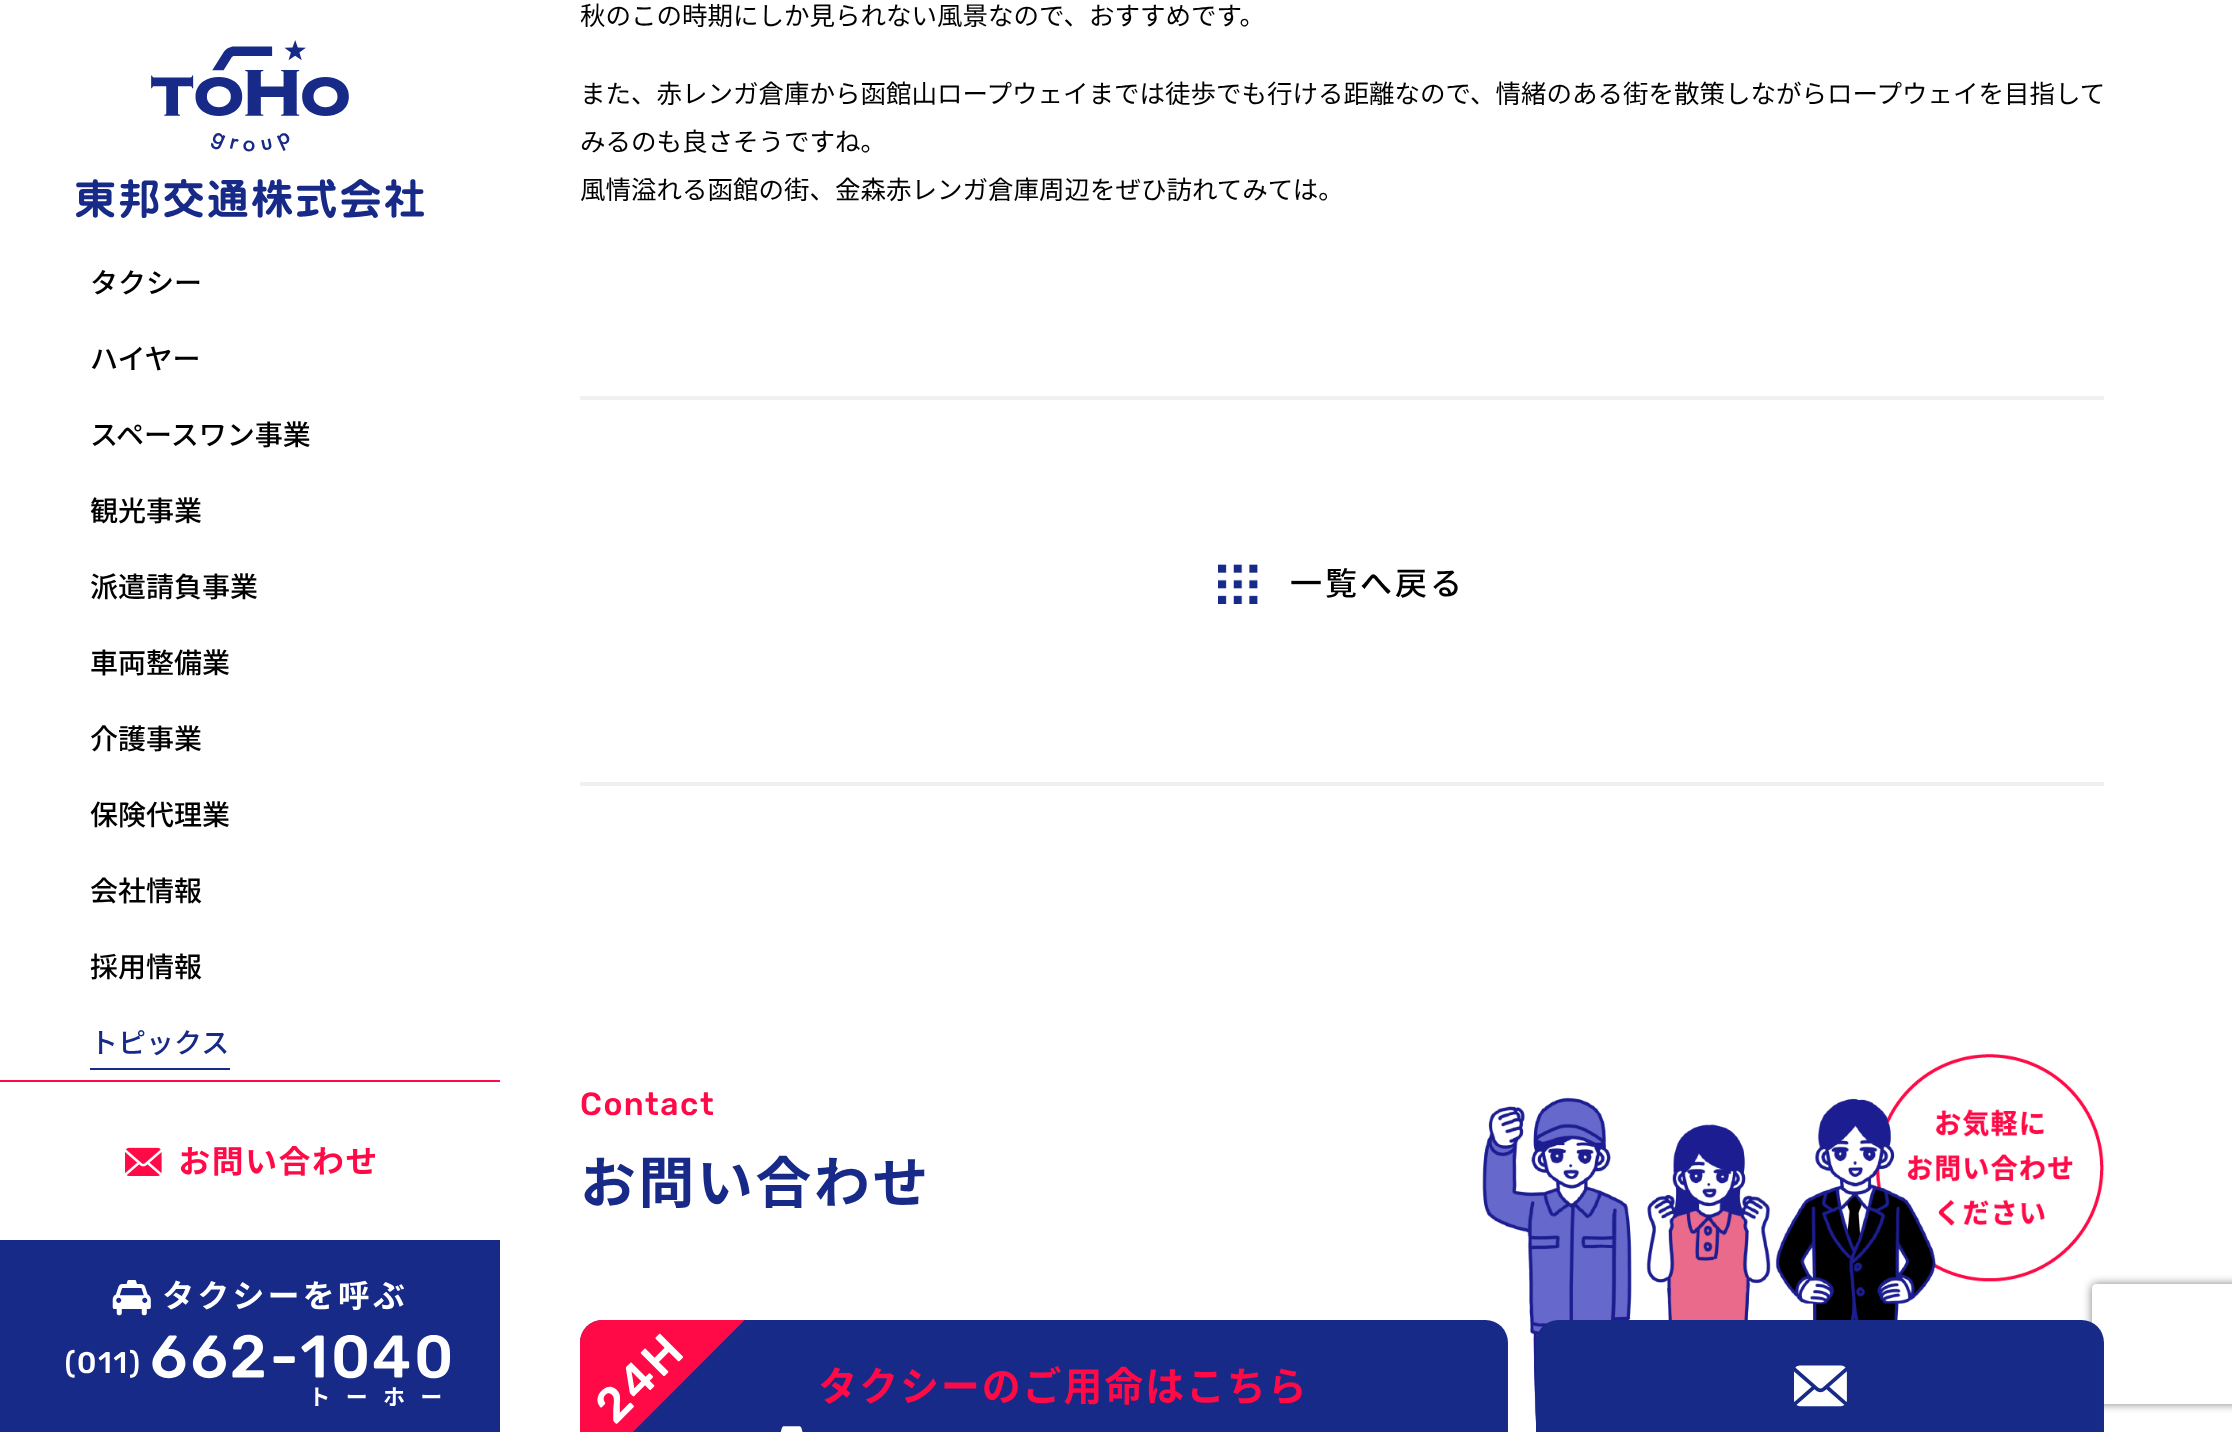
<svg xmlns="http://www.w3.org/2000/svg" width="2232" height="1432">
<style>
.a{font:500 28px Noto Sans JP;fill:#000}
.b{font:500 28px Noto Sans JP;fill:#172a88}
.c{font:25.5px Noto Sans JP;fill:#000}
.d{font:500 32px Noto Sans JP;letter-spacing:3px;fill:#000}
.e{font:500 32px Rubik;letter-spacing:1.5px;fill:#ff0a46}
.f{font:bold 55.75px Noto Sans JP;letter-spacing:2.75px;fill:#172a88}
</style>
<defs>
<clipPath id="clip1"><path d="M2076 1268h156v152h-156zm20 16h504c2 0 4 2 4 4v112c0 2-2 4-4 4h-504c-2 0-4-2-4-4v-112c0-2 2-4 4-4z" clip-rule="evenodd"/></clipPath>
</defs>
<rect width="100%" height="100%" fill="#fff"/>
<image href="1.png" x="76" y="40" width="348" height="178"/>
<path fill="#172a88" d="M90 1068h140v2H90z"/>
<path fill="#ff0a46" d="M0 1080h500v2H0z"/>
<image href="2.png" x="125" y="1146" width="250" height="30"/>
<path fill="#172a88" d="M0 1240h500v192H0z"/>
<image href="3.png" x="66" y="1280" width="384" height="126"/>
<path fill="#f0f0f0" d="M580 396h1524v4H580z"/>
<path fill="#f0f0f0" d="M580 782h1524v4H580z"/>
<image href="4.png" x="1218" y="564" width="40" height="40"/>
<g clip-path="url(#clip1)">
<rect fill="#808080" filter="blur(5px)" x="2092" y="1284" width="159" height="120" rx="4"/>
</g>
<image href="6.png" x="1482" y="1054" width="622" height="369"/>
<image href="5.png" x="580" y="1320" width="928" height="112"/>
<image href="7.png" x="1536" y="1320" width="568" height="112"/>
<text class="a" x="90" y="293">タクシー</text>
<text class="a" x="90" y="369">ハイヤー</text>
<text class="a" x="90" y="445">スペースワン事業</text>
<text class="a" x="90" y="521">観光事業</text>
<text class="a" x="90" y="597">派遣請負事業</text>
<text class="a" x="90" y="673">車両整備業</text>
<text class="a" x="90" y="749">介護事業</text>
<text class="a" x="90" y="825">保険代理業</text>
<text class="a" x="90" y="901">会社情報</text>
<text class="a" x="90" y="977">採用情報</text>
<text class="b" x="90" y="1053">トピックス</text>
<text class="c" x="580" y="25">秋のこの時期にしか見られない風景なので、おすすめです。</text>
<text class="c" x="580" y="103">また、赤レンガ倉庫から函館山ロープウェイまでは徒歩でも行ける距離なので、情緒のある街を散策しながらロープウェイを目指して</text>
<text class="c" x="580" y="151">みるのも良さそうですね。</text>
<text class="c" x="580" y="199">風情溢れる函館の街、金森赤レンガ倉庫周辺をぜひ訪れてみては。</text>
<text class="d" x="1290" y="595">一覧へ戻る</text>
<text class="e" x="580" y="1115">Contact</text>
<text class="f" x="580" y="1203">お問い合わせ</text>
</svg>
